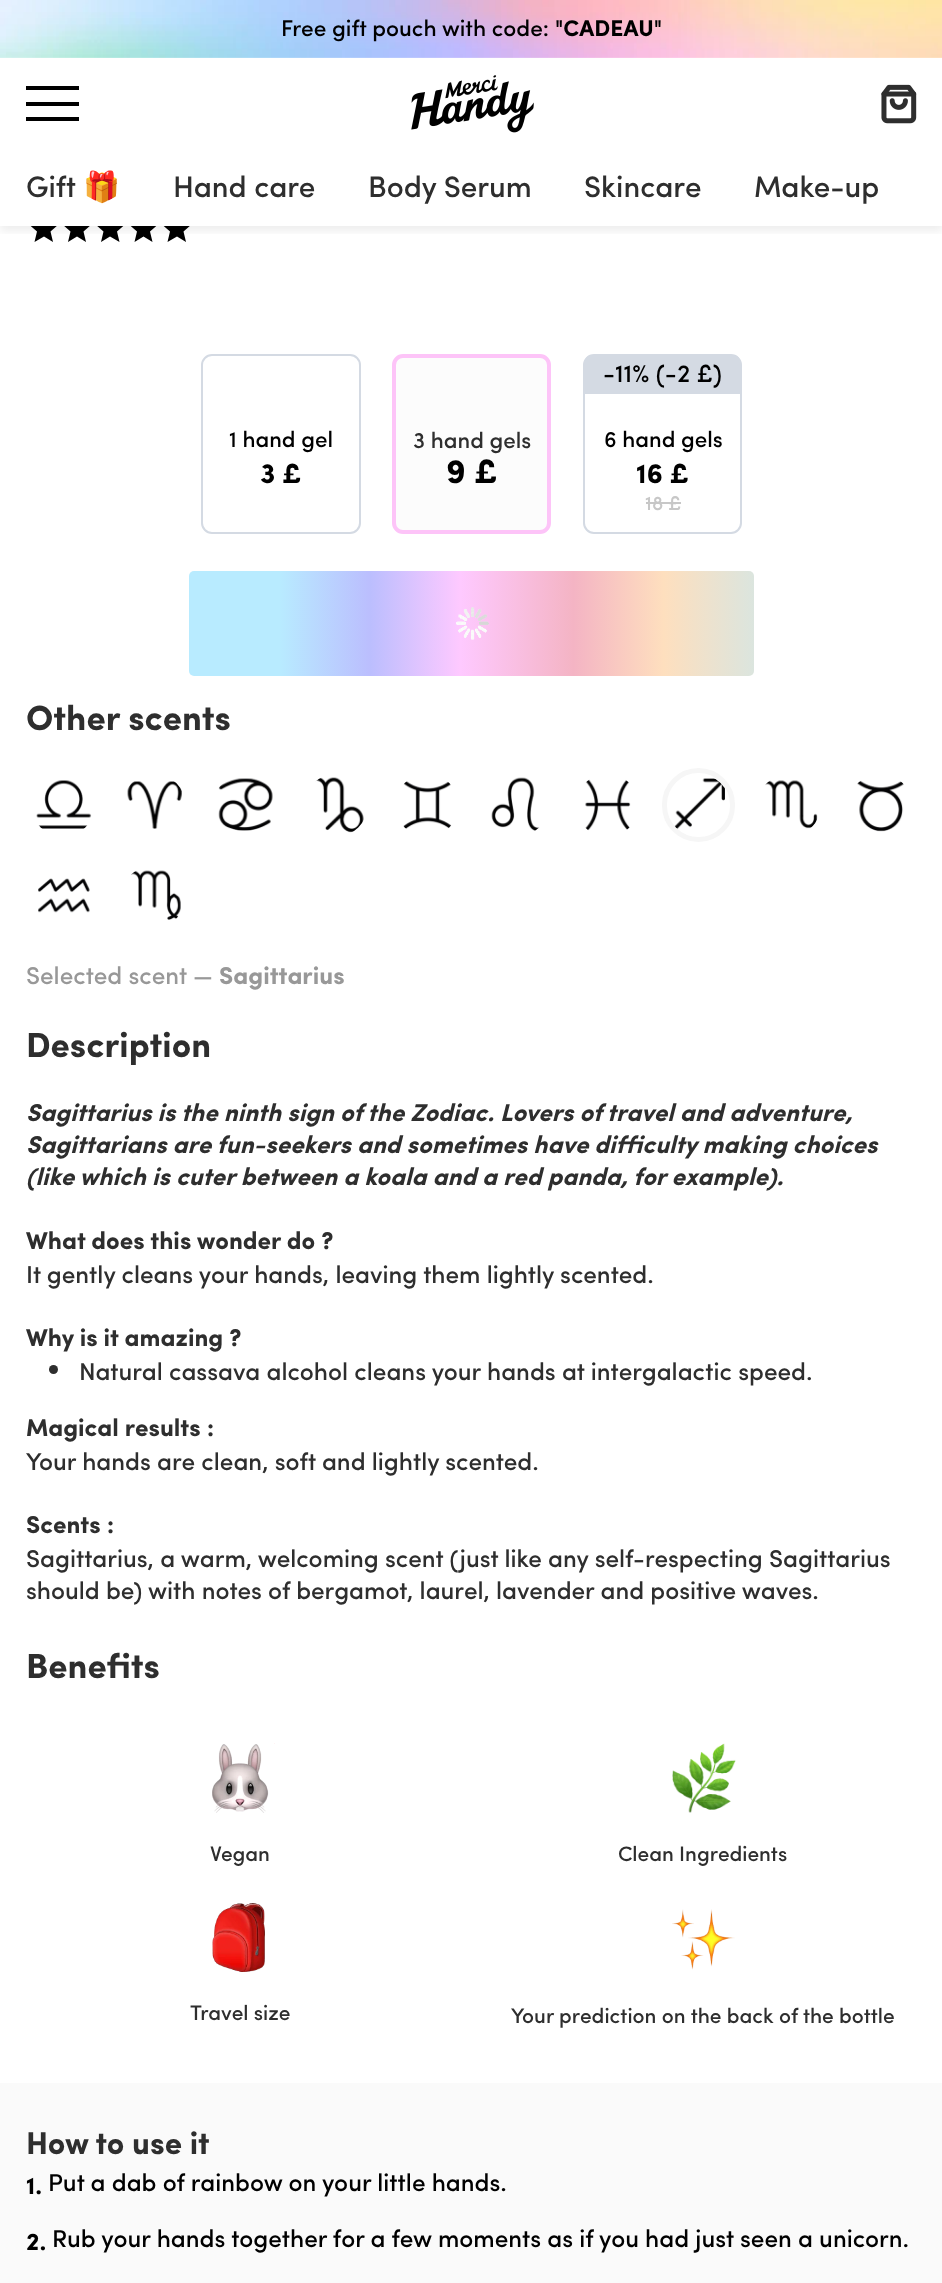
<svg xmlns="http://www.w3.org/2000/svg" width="942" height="2283">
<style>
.a{font:500 22.75px Sofia;fill:#000}
.b{font:bold 22.75px Sofia;fill:#000}
.c{font:500 29.75px Sofia;fill:#2e2e2e}
.d{font:29.75px Noto Color Emoji;fill:#2e2e2e}
.e{font:500 22.5px Sofia;fill:#000}
.f{font:bold 28px Sofia;fill:#000}
.g{font:500 22.5px Sofia;fill:#2e2e2e}
.h{font:bold 34px Sofia;fill:#000}
.i{font:500 25px Sofia;fill:#000}
.j{font:500 20px Sofia;fill:#c7c7c7}
.k{font:bold 35px Sofia;fill:#2e2e2e}
.l{font:500 24.5px Sofia;fill:#989898}
.m{font:bold 24.5px Sofia;fill:#989898}
.n{font:italic bold 24.5px Sofia;fill:#2e2e2e}
.o{font:bold 24.5px Sofia;fill:#2e2e2e}
.p{font:500 24.5px Sofia;fill:#2e2e2e}
.q{font:500 21px Sofia;fill:#2e2e2e}
.r{font:bold 31.5px Sofia;fill:#2e2e2e}
.s{font:bold 24.5px Sofia;fill:#000}
.t{font:500 24.5px Sofia;fill:#000}
</style>
<defs>
<clipPath id="clip1"><path d="M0 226h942v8H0z"/></clipPath>
<linearGradient id="g1" gradientUnits="userSpaceOnUse" x1="189" y1="623" x2="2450" y2="623"><stop offset="0.04" stop-color="#b8ebff"/><stop offset="0.08" stop-color="#bbbefe"/><stop offset="0.12" stop-color="#fec9ff"/><stop offset="0.17" stop-color="#f4b4c4"/><stop offset="0.21" stop-color="#fedfbe"/><stop offset="0.29" stop-color="#b8ebff"/><stop offset="0.33" stop-color="#bbbefe"/><stop offset="0.38" stop-color="#fec9ff"/><stop offset="0.42" stop-color="#f4b4c4"/><stop offset="0.46" stop-color="#fedfbe"/><stop offset="0.54" stop-color="#b8ebff"/><stop offset="0.58" stop-color="#bbbefe"/><stop offset="0.62" stop-color="#fec9ff"/><stop offset="0.67" stop-color="#f4b4c4"/><stop offset="0.71" stop-color="#fedfbe"/><stop offset="0.79" stop-color="#b8ebff"/><stop offset="0.83" stop-color="#bbbefe"/><stop offset="0.88" stop-color="#fec9ff"/><stop offset="0.92" stop-color="#f4b4c4"/><stop offset="0.96" stop-color="#fedfbe"/></linearGradient>
</defs>
<rect width="100%" height="100%" fill="#fff"/>
<path fill="#000" d="M44 236.5l-9.5 5.5l2.5-10.5l-8-7l10.5-1l4.5-9.5l4 9.5l10.5 1l-8 7l2.5 10.5zm33 0l-9 5.5l2.5-10.5l-8-7l10.5-1l4-9.5l4 9.5l10.5 1l-8 7l2.5 10.5z"/>
<path fill="#000" d="M110 236.5l-9 5.5l2.5-10.5l-8-7l10.5-1l4-9.5l4.5 9.5l10.5 1l-8 7l2.5 10.5zm33.5 0l-9 5.5l2.5-10.5l-8-7l10.5-1l4-9.5l4 9.5l10.5 1l-8 7l2.5 10.5z"/>
<path fill="#000" d="M177 236.5l-9.5 5.5l2.5-10.5l-8-7l10.5-1l4.5-9.5l4 9.5l10.5 1l-8 7l2.5 10.5z"/>
<path fill="#fff" d="M29 214h163v12H29z"/>
<g clip-path="url(#clip1)">
<path fill="#00000012" filter="blur(5px)" d="M0 63h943v168H0z"/>
</g>
<image href="1.png" x="0" y="0" width="942" height="58"/>
<path fill="#000" d="M26 102h53v4H26z"/>
<path fill="#000" d="M26 86h53v4H26z"/>
<path fill="#000" d="M26 117h53v4H26z"/>
<image href="2.png" x="411" y="75" width="123" height="58"/>
<image href="3.png" x="881" y="84" width="36" height="40"/>
<rect fill="none" stroke="#d4dae3" stroke-width="2" x="202" y="355" width="158" height="178" rx="10"/>
<rect fill="#fcfcfc" stroke="#fdc4f8" stroke-width="4" x="394" y="356" width="155" height="176" rx="9"/>
<rect fill="none" stroke="#d4dae3" stroke-width="2" x="584" y="355" width="157" height="178" rx="10"/>
<path fill="#d4dae3" d="M592 355h141c4 0 7 3 7 7v32h-155v-32c0-4 3-7 7-7z"/>
<path fill="#c7c7c7" d="M646 502h35v2H646z"/>
<rect fill="url(#g1)" x="189" y="571" width="565" height="105" rx="5"/>
<image href="4.png" x="456" y="607" width="33" height="33"/>
<image href="5.png" x="36" y="780" width="56" height="49"/>
<image href="6.png" x="127" y="781" width="55" height="48"/>
<image href="7.png" x="218" y="778" width="55" height="53"/>
<image href="8.png" x="315" y="777" width="49" height="56"/>
<image href="9.png" x="403" y="781" width="49" height="48"/>
<image href="10.png" x="491" y="777" width="49" height="54"/>
<image href="11.png" x="585" y="779" width="46" height="52"/>
<rect fill="none" stroke="#f6f6f6" stroke-width="5" x="664.5" y="770.5" width="68" height="69" rx="34"/>
<image href="12.png" x="674" y="778" width="51" height="51"/>
<image href="13.png" x="765" y="780" width="53" height="49"/>
<image href="14.png" x="857" y="780" width="47" height="52"/>
<image href="15.png" x="38" y="878" width="52" height="35"/>
<image href="16.png" x="131" y="870" width="50" height="50"/>
<circle fill="#2e2e2e" cx="53.5" cy="1369.5" r="4.5"/>
<image href="17.png" x="212" y="1743" width="63" height="70"/>
<image href="18.png" x="672" y="1743" width="64" height="70"/>
<image href="19.png" x="212" y="1903" width="53" height="69"/>
<image href="20.png" x="672" y="1909" width="63" height="61"/>
<path fill="#fafafa" d="M0 2083h942v200H0z"/>
<text class="a" x="281" y="36">Free gift pouch with code:</text>
<text class="b" x="555" y="36">"CADEAU"</text>
<text class="c" x="26" y="197">Gift</text>
<text class="d" x="83" y="197">🎁</text>
<text class="c" x="173" y="197">Hand care</text>
<text class="c" x="368" y="197">Body Serum</text>
<text class="c" x="584" y="197">Skincare</text>
<text class="c" x="754" y="197">Make-up</text>
<text class="e" x="229" y="447">1 hand gel</text>
<text class="f" x="260" y="483">3 £</text>
<text class="g" x="413" y="448">3 hand gels</text>
<text class="h" x="446" y="483">9 £</text>
<text class="i" x="603" y="382">-</text>
<text class="i" x="615" y="382">11% (-</text>
<text class="i" x="677" y="382">2 £)</text>
<text class="e" x="604" y="447">6 hand gels</text>
<text class="f" x="636" y="483">16 £</text>
<text class="j" x="645" y="510">18 £</text>
<text class="k" x="26" y="730">Other scents</text>
<text class="l" x="26" y="984">Selected scent —</text>
<text class="m" x="219" y="984">Sagittarius</text>
<text class="k" x="26" y="1057">Description</text>
<text class="n" x="26" y="1121">Sagittarius is the ninth sign of the Zodiac. Lovers of travel and adventure,</text>
<text class="n" x="26" y="1153">Sagittarians are fun-seekers and sometimes have difficulty making choices</text>
<text class="n" x="26" y="1185">(like which is cuter between a koala and a red panda, for example).</text>
<text class="o" x="26" y="1249">What does this wonder do ?</text>
<text class="p" x="26" y="1283">It gently cleans your hands, leaving them lightly scented.</text>
<text class="o" x="26" y="1346">Why is it amazing ?</text>
<text class="p" x="79" y="1380">Natural cassava alcohol cleans your hands at intergalactic speed.</text>
<text class="o" x="26" y="1436">Magical results :</text>
<text class="p" x="26" y="1470">Your hands are clean, soft and lightly scented.</text>
<text class="o" x="26" y="1533">Scents :</text>
<text class="p" x="26" y="1567">Sagittarius, a warm, welcoming scent (just like any self-respecting Sagittarius</text>
<text class="p" x="26" y="1599">should be) with notes of bergamot, laurel, lavender and positive waves.</text>
<text class="k" x="26" y="1678">Benefits</text>
<text class="q" x="210" y="1861">Vegan</text>
<text class="q" x="618" y="1861">Clean Ingredients</text>
<text class="q" x="190" y="2020">Travel size</text>
<text class="q" x="511" y="2023">Your prediction on the back of the bottle</text>
<text class="r" x="26" y="2154">How to use it</text>
<text class="s" x="26" y="2194">1.</text>
<text class="t" x="48" y="2191">Put a dab of rainbow on your little hands.</text>
<text class="s" x="26" y="2250">2.</text>
<text class="t" x="52" y="2247">Rub your hands together for a few moments as if you had just seen a unicorn.</text>
</svg>
